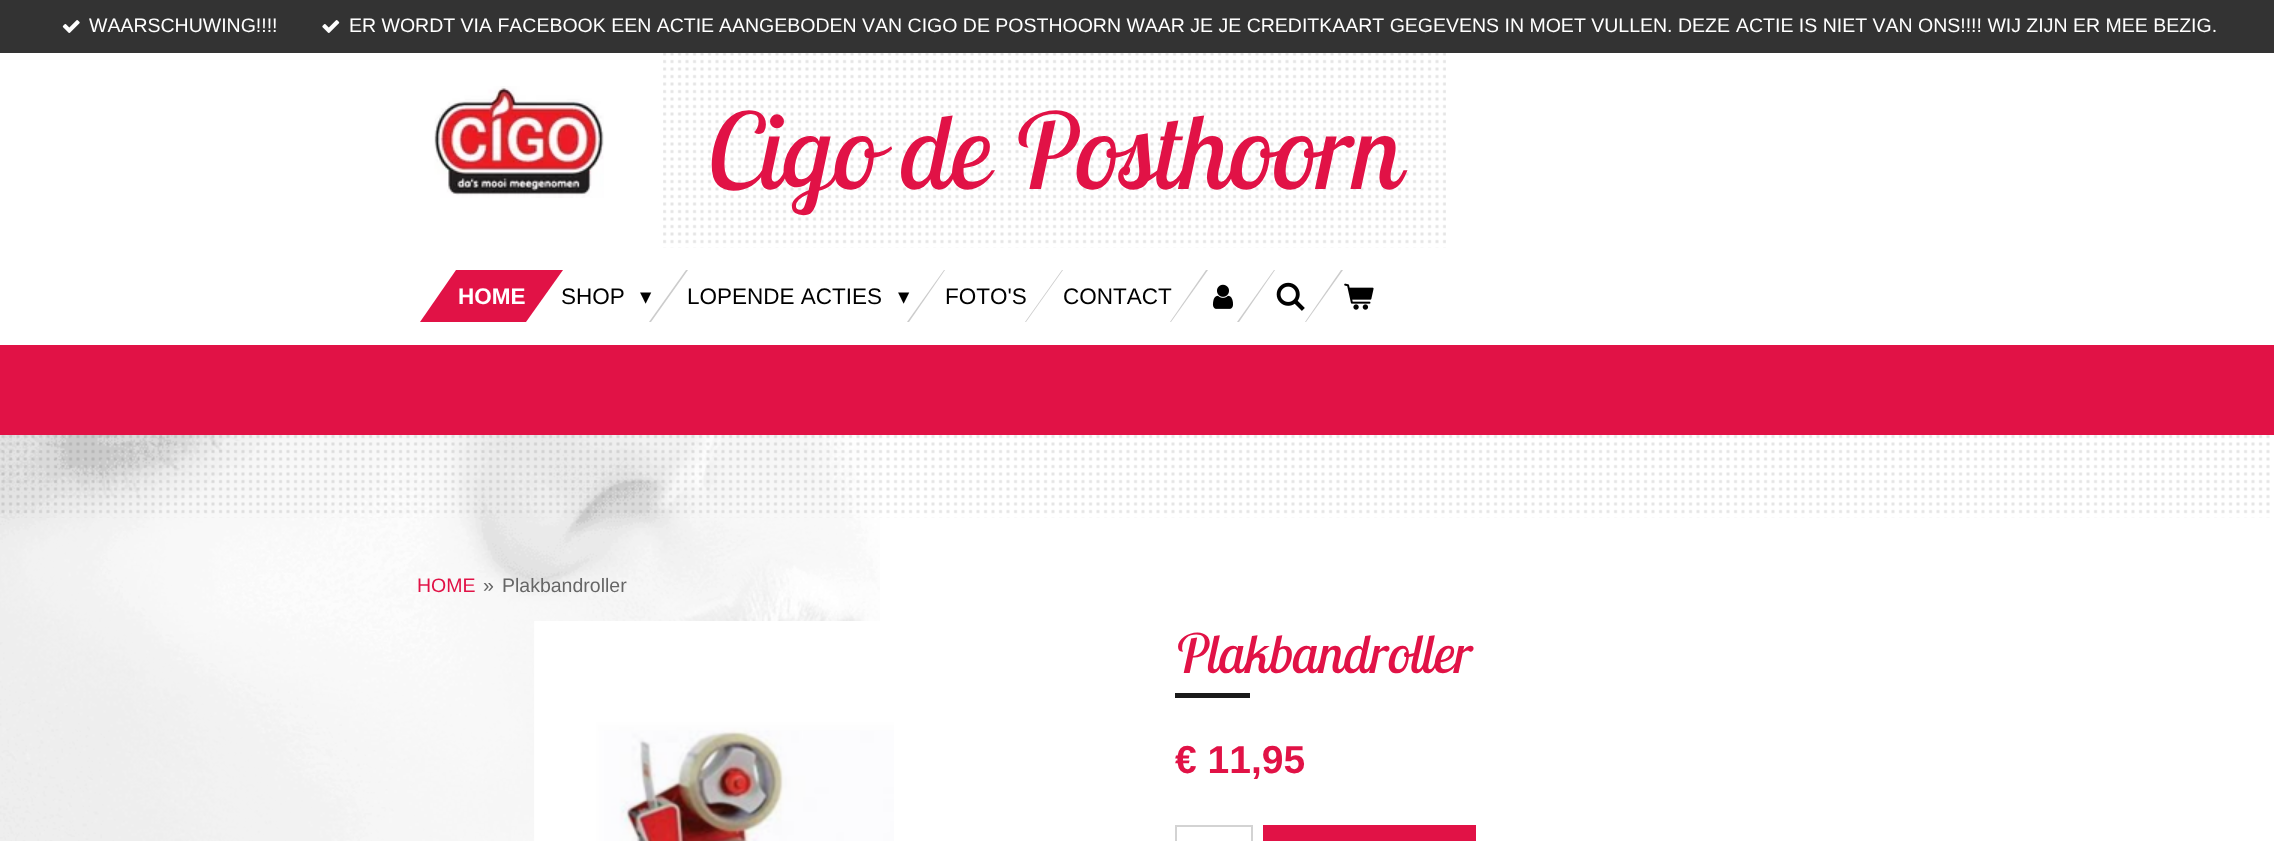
<svg xmlns="http://www.w3.org/2000/svg" width="2274" height="841">
<style>*{font-kerning:none!important;font-variant-ligatures:none!important}</style>
<style>
.a{font:19.5px Liberation Sans;fill:#fff}
.b{font:italic 105px Lobster Two;fill:#e11246}
.c{font:22.5px Liberation Sans;fill:#000}
.d{font:bold 22.5px Liberation Sans;fill:#fff}
.e{font:22.5px DejaVu Sans;fill:#000}
.f{font:19.5px Liberation Sans;fill:#e11246}
.g{font:19.5px Liberation Sans;fill:#666}
.h{font:italic 54px Lobster Two;fill:#e11246}
.i{font:bold 39px Liberation Sans;fill:#e11246}
</style>
<rect width="100%" height="100%" fill="#fff"/>
<path fill="#333" d="M0 0h2274v53H0z"/>
<image href="1.png" x="62" y="20" width="18" height="13"/>
<image href="2.png" x="322" y="20" width="18" height="13"/>
<image href="3.png" x="434" y="86" width="170" height="112"/>
<image href="4.png" x="663" y="53" width="783" height="195"/>
<path fill="#ccc" d="M686 270h2l-37 52h-2z"/>
<path fill="#ccc" d="M944 270h1l-36 52h-2z"/>
<path fill="#ccc" d="M1062 270h1l-37 52h-1z"/>
<path fill="#ccc" d="M1206 270h2l-37 52h-1z"/>
<image href="5.png" x="1212" y="284" width="21" height="25"/>
<path fill="#ccc" d="M1274 270h1l-36 52h-2z"/>
<image href="6.png" x="1276" y="282" width="29" height="29"/>
<path fill="#ccc" d="M1341 270h2l-37 52h-1z"/>
<image href="7.png" x="1344" y="283" width="30" height="27"/>
<image href="8.png" x="1" y="435" width="2269" height="83"/>
<path fill="#e11246" d="M0 345h2274v90H0z"/>
<image href="9.png" x="0" y="435" width="880" height="406"/>
<image href="10.png" x="534" y="621" width="360" height="220"/>
<path fill="#1a1a1a" d="M1175 693h75v5H1175z"/>
<path fill="none" stroke="#d3d3d3" stroke-width="2" d="M1176 826h76v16H1176z"/>
<path fill="#e11246" d="M1263 825h213v16H1263z"/>
<text class="a" x="89" y="32">WAARSCHUWING!!!!</text>
<text class="a" x="349" y="32">ER WORDT VIA FACEBOOK EEN ACTIE</text>
<text class="a" x="719" y="32">AANGEBODEN VAN CIGO DE POSTHOORN WAAR JE JE CREDITKAART GEGEVENS IN MOET VULLEN. DEZE</text>
<text class="a" x="1736" y="32">ACTIE IS NIET VAN ONS!!!! WIJ ZIJN ER MEE BEZIG.</text>
<text class="b" x="707" y="189">Cigo de Posthoorn</text>
<text class="c" x="561" y="304">SHOP</text>
<path fill="#e11246" d="M456 270h107l-37 52h-106z"/>
<text class="d" x="458" y="304">HOME</text>
<text class="e" x="640" y="304">▾</text>
<text class="c" x="687" y="304">LOPENDE ACTIES</text>
<text class="e" x="898" y="304">▾</text>
<text class="c" x="945" y="304">FOTO'S</text>
<text class="c" x="1063" y="304">CONTACT</text>
<text class="f" x="417" y="592">HOME</text>
<text class="g" x="483" y="592">»</text>
<text class="g" x="502" y="592">Plakbandroller</text>
<text class="h" x="1175" y="673">Plakbandroller</text>
<text class="i" x="1175" y="773">€ 11,95</text>
</svg>
